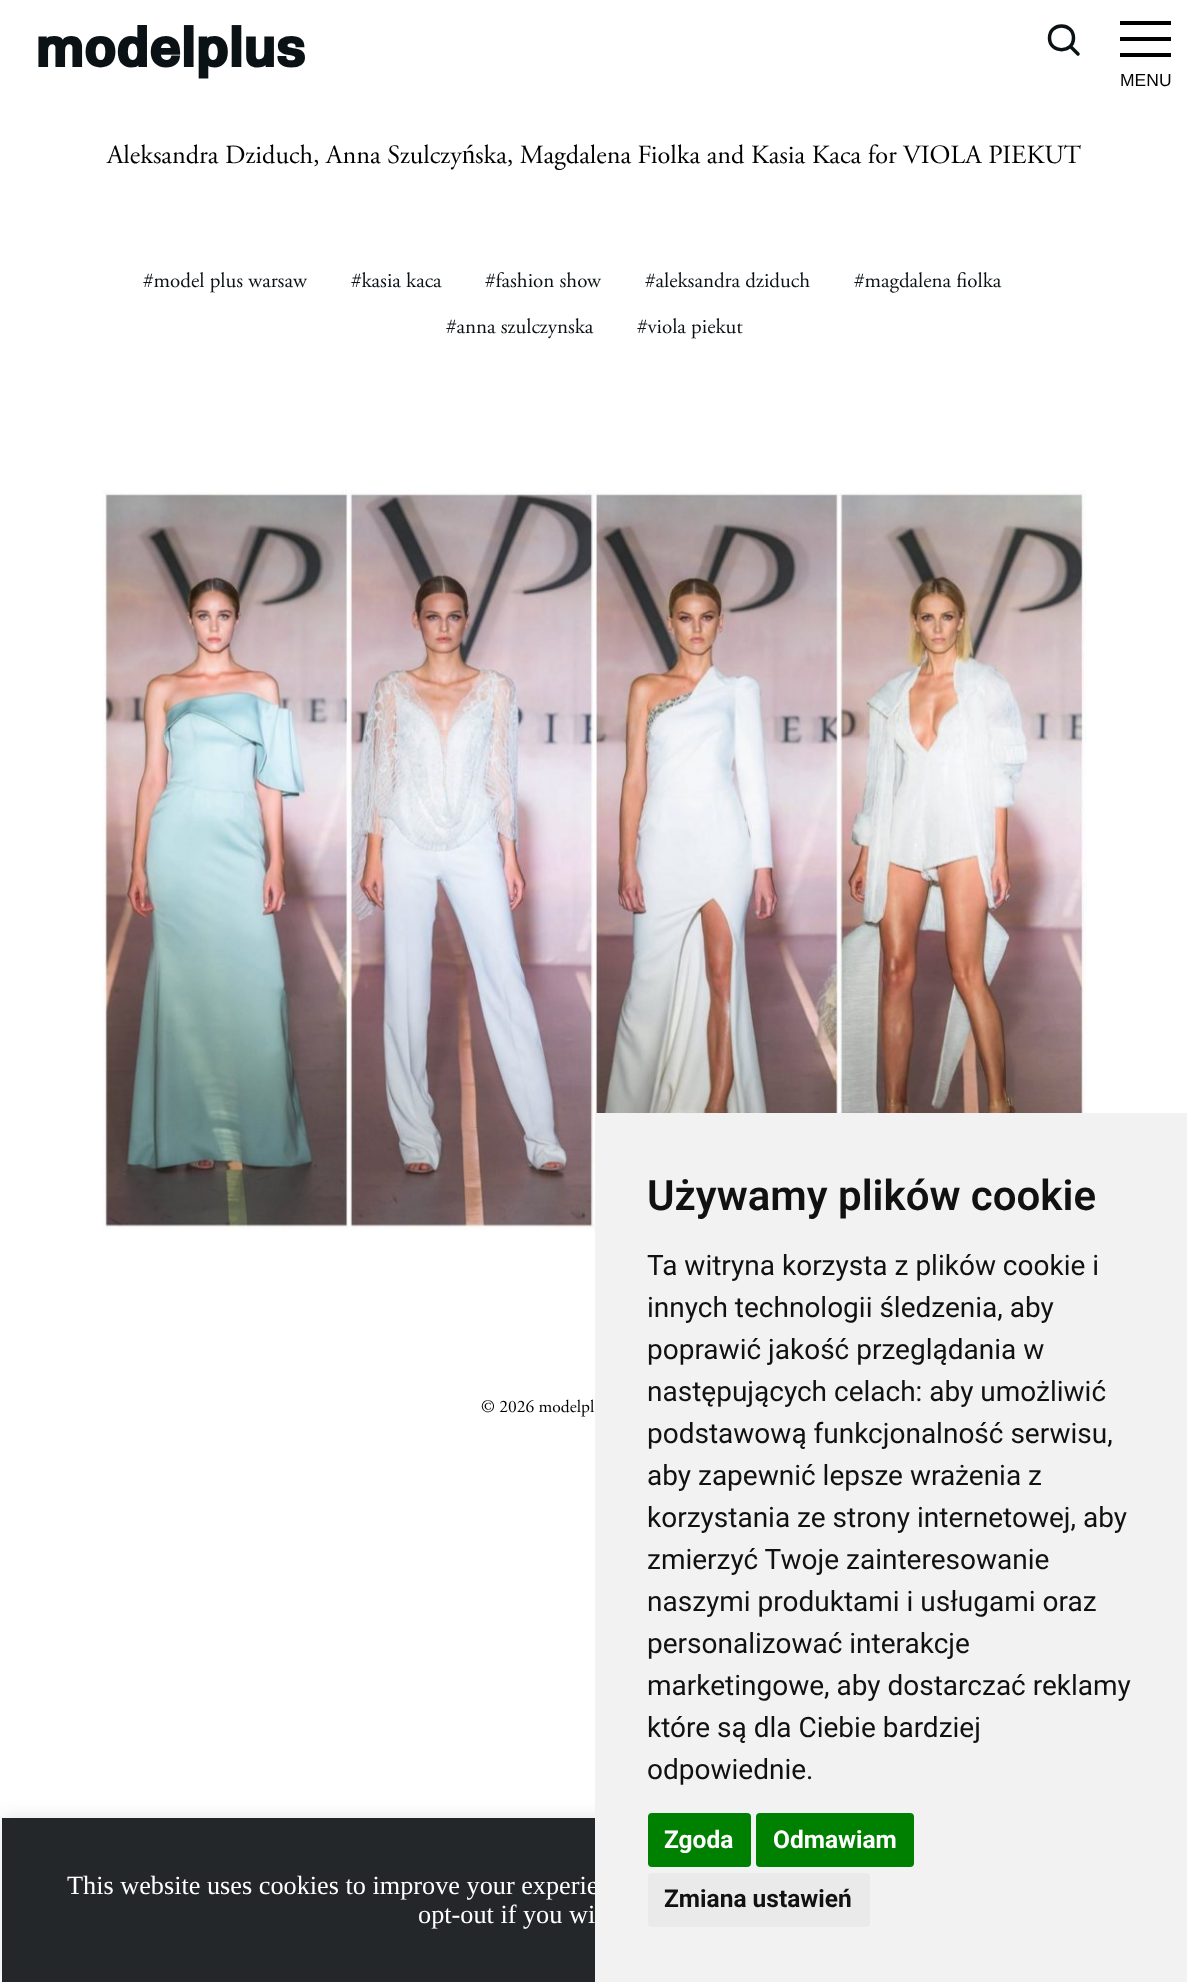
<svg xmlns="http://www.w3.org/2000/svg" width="1187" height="1982">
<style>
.a{font:bold 57.5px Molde;fill:#0b1215}
.b{font:17.5px Liberation Sans;fill:#000}
.c{font:26.25px Adobe Garamond;fill:#000}
.d{font:26.25px Liberation Serif;fill:#000}
.e{font:21px Adobe Garamond;fill:#0b1215}
.f{font:17.5px Adobe Garamond;fill:#000}
.g{font:26.25px Liberation Serif;fill:#fff}
.h{font:bold 24.5px Roboto;fill:#111}
.i{font:bold 24.5px Roboto;fill:#fff}
.j{font:28px Roboto;fill:#111}
.k{font:600 42px Roboto;fill:#111}
</style>
<defs>
<clipPath id="clip1"><path d="M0 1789h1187v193h-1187zm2 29h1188v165h-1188z" clip-rule="evenodd"/></clipPath>
</defs>
<rect width="100%" height="100%" fill="#fff"/>
<path fill="none" stroke="#0b1215" stroke-width="3.5" stroke-linecap="round" d="M1078 54l-7.5-7.5m3-8.5c0 15.5-24 15.5-24 0c0-16 24-16 24 0z"/>
<path fill="#000" d="M1120 21h51v4H1120z"/>
<path fill="#000" d="M1120 37h51v4H1120z"/>
<path fill="#000" d="M1120 53h51v4H1120z"/>
<image href="1.png" x="102" y="490" width="985" height="741"/>
<g clip-path="url(#clip1)">
<path fill="#acabab4d" filter="blur(9px)" d="M2 1817h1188v164H2z"/>
</g>
<path fill="#232729" d="M2 1818h593v164H2z"/>
<text class="a" x="35" y="67">modelplus</text>
<text class="b" x="1120" y="86">MENU</text>
<text class="c" x="107" y="163">Aleksandra Dziduch, Anna Szulczy</text>
<text class="d" x="462" y="163">ń</text>
<text class="c" x="475" y="163">ska, Magdalena Fiolka and Kasia Kaca for VIOLA PIEKUT</text>
<text class="e" x="143" y="287">#model plus warsaw</text>
<text class="e" x="351" y="287">#kasia kaca</text>
<text class="e" x="485" y="287">#fashion show</text>
<text class="e" x="645" y="287">#aleksandra dziduch</text>
<text class="e" x="854" y="287">#magdalena fiolka</text>
<text class="e" x="446" y="333">#anna szulczynska</text>
<text class="e" x="637" y="333">#viola piekut</text>
<text class="f" x="481" y="1412">© 2026 modelpl</text>
<text class="g" x="67" y="1894">This website uses cookies to improve your experie</text>
<text class="g" x="418" y="1923">opt-out if you wi</text>
<path fill="#f2f2f2" d="M595 1113h592v869H595z"/>
<rect fill="#eaeaea" x="648" y="1873" width="222" height="54" rx="4"/>
<text class="h" x="664" y="1907">Zmiana ustawień</text>
<rect fill="#008000" x="756" y="1813" width="158" height="54" rx="4"/>
<text class="i" x="773" y="1848">Odmawiam</text>
<rect fill="#008000" x="648" y="1813" width="103" height="54" rx="4"/>
<text class="i" x="664" y="1848">Zgoda</text>
<text class="j" x="647" y="1779">odpowiednie.</text>
<text class="j" x="647" y="1737">które są dla Ciebie bardziej</text>
<text class="j" x="647" y="1695">marketingowe, aby dostarczać reklamy</text>
<text class="j" x="647" y="1653">personalizować interakcje</text>
<text class="j" x="647" y="1611">naszymi produktami i usługami oraz</text>
<text class="j" x="647" y="1569">zmierzyć Twoje zainteresowanie</text>
<text class="j" x="647" y="1527">korzystania ze strony internetowej, aby</text>
<text class="j" x="647" y="1485">aby zapewnić lepsze wrażenia z</text>
<text class="j" x="647" y="1443">podstawową funkcjonalność serwisu,</text>
<text class="j" x="647" y="1401">następujących celach: aby umożliwić</text>
<text class="j" x="647" y="1359">poprawić jakość przeglądania w</text>
<text class="j" x="647" y="1317">innych technologii śledzenia, aby</text>
<text class="j" x="647" y="1275">Ta witryna korzysta z plików cookie i</text>
<text class="k" x="647" y="1210">Używamy plików cookie</text>
</svg>
